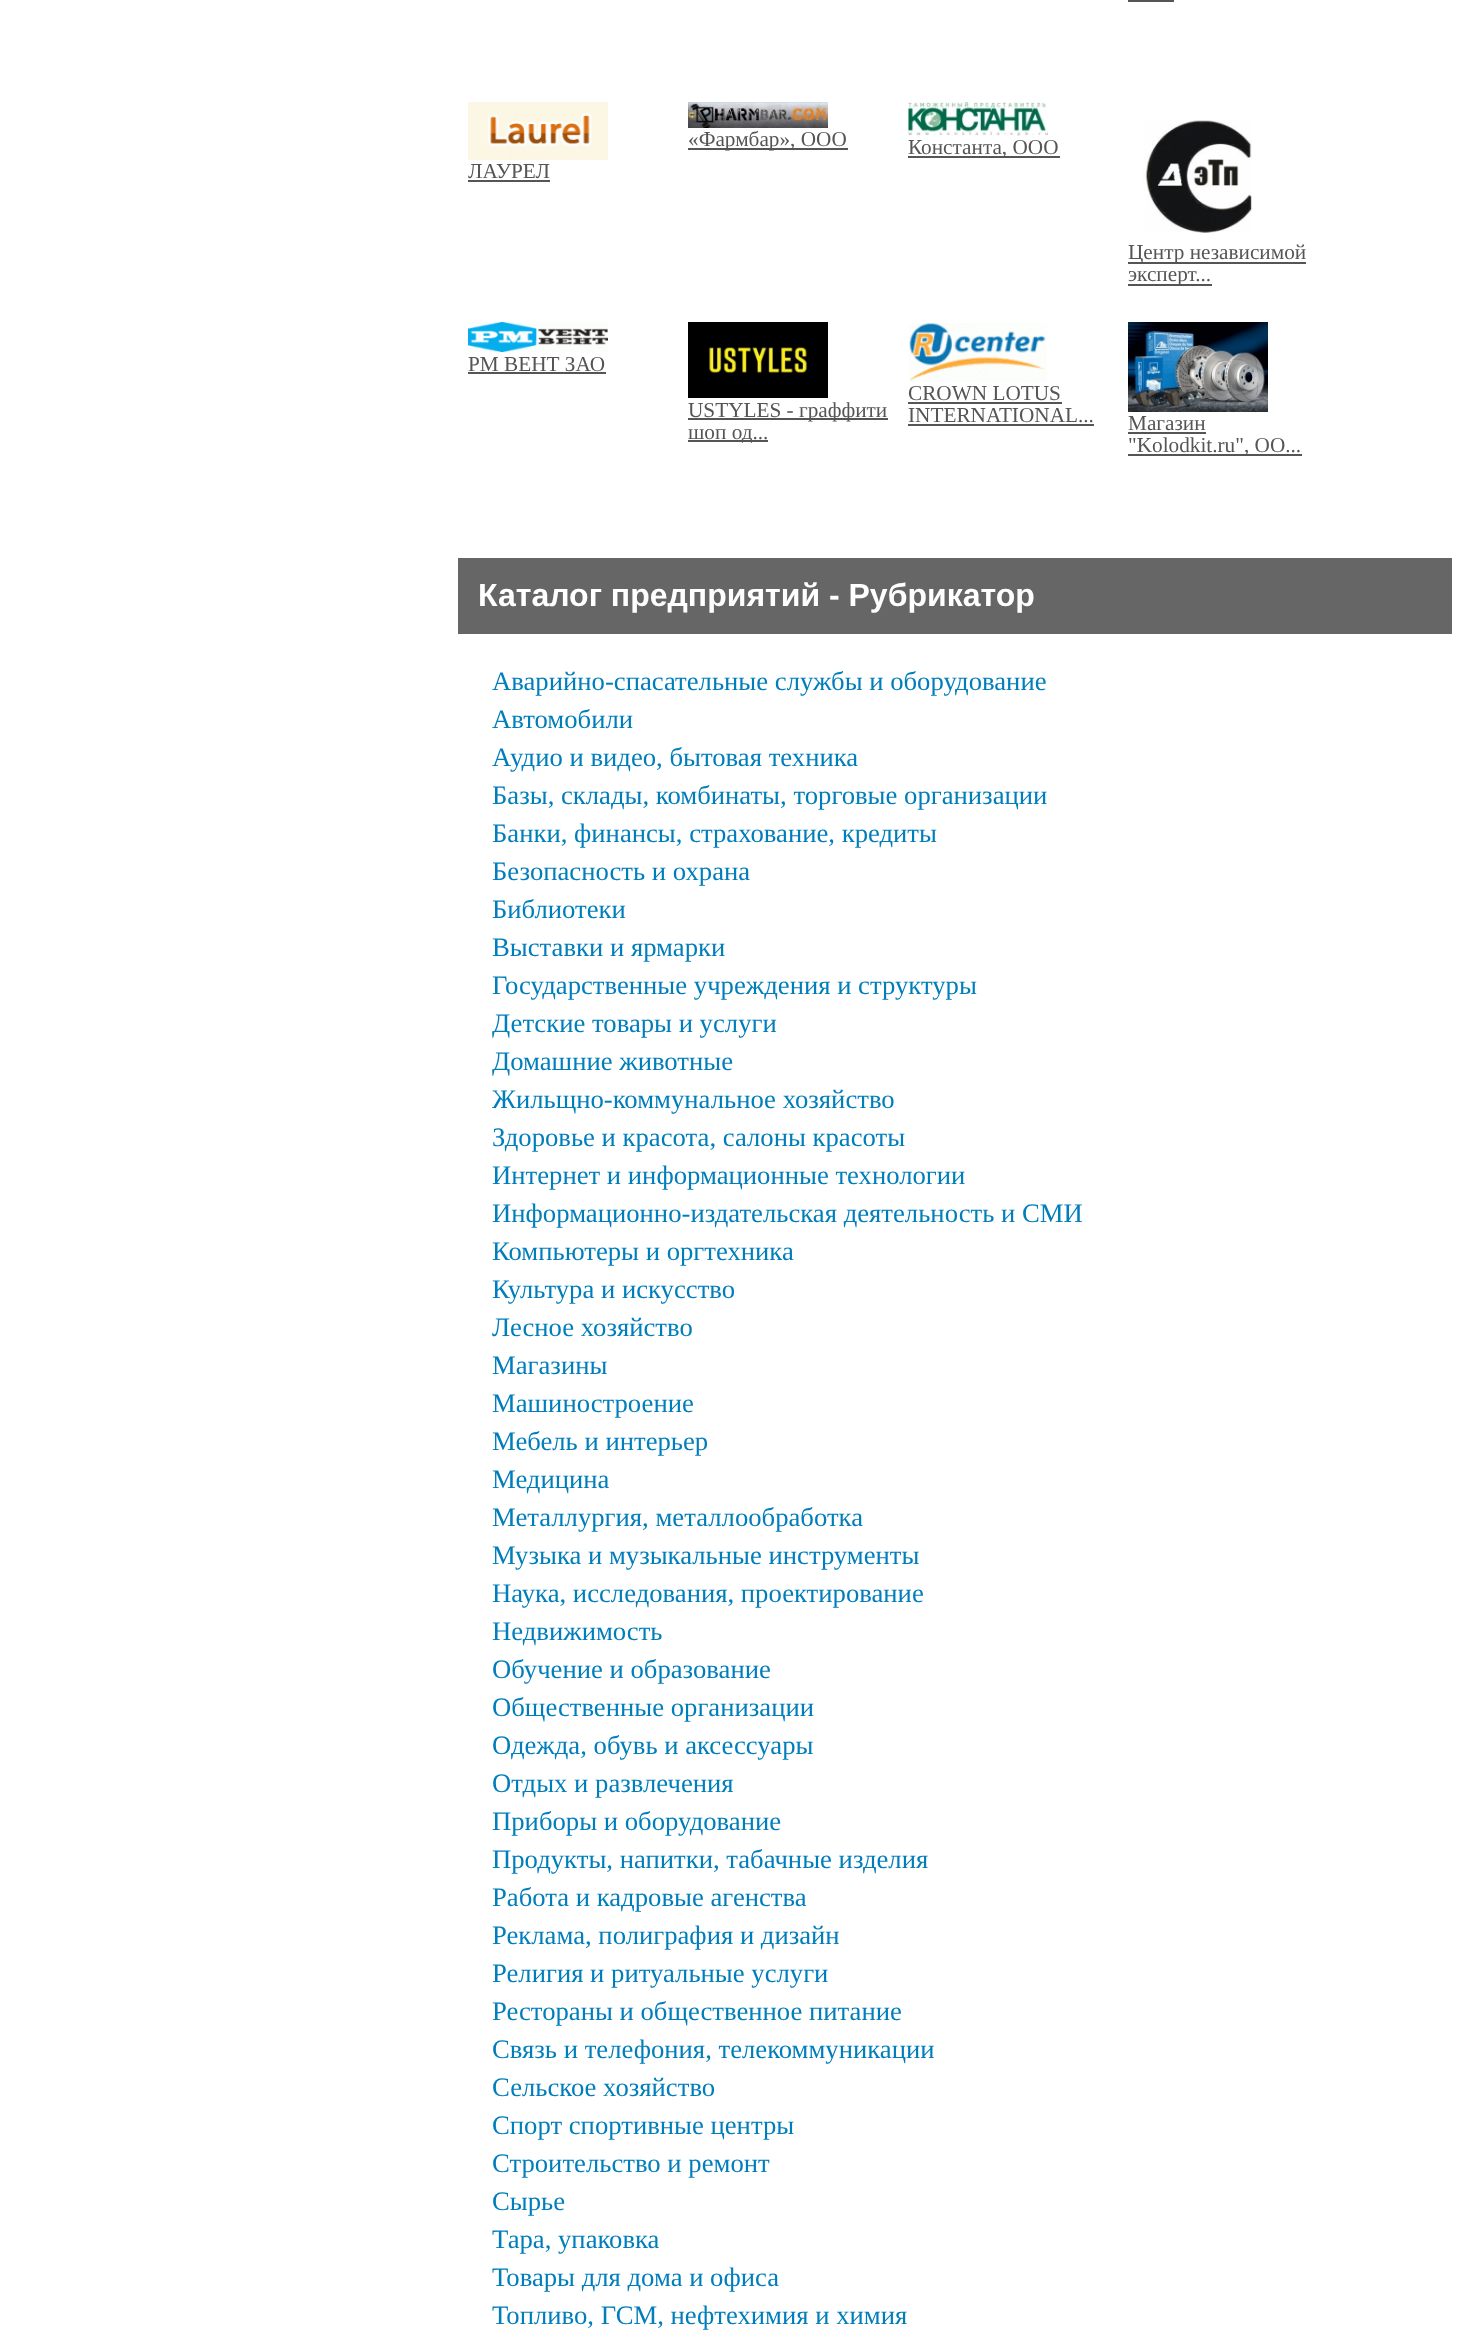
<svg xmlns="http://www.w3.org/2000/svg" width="1458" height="2330">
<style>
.a{font:21.25px Liberation Serif;fill:#555}
.b{font:bold 32px Liberation Sans;fill:#fff}
.c{font:26.7px Liberation Serif;fill:#007ebb}
</style>
<rect width="100%" height="100%" fill="#fff"/>
<path fill="#555" d="M1128 0h46v2H1128z"/>
<image href="1.png" x="688" y="102" width="140" height="26"/>
<path fill="#555" d="M688 148h160v2H688z"/>
<image href="2.png" x="908" y="102" width="140" height="34"/>
<path fill="#555" d="M908 156h152v2H908z"/>
<image href="3.png" x="468" y="102" width="140" height="58"/>
<path fill="#555" d="M468 180h82v2H468z"/>
<image href="4.png" x="1143" y="120" width="109" height="113"/>
<path fill="#555" d="M1128 262h178v2H1128z"/>
<path fill="#555" d="M1128 284h84v2H1128z"/>
<image href="5.png" x="468" y="322" width="140" height="30"/>
<path fill="#555" d="M468 372h138v2H468z"/>
<image href="6.png" x="688" y="322" width="140" height="76"/>
<path fill="#555" d="M688 418h200v2H688z"/>
<path fill="#555" d="M688 440h80v2H688z"/>
<image href="7.png" x="909" y="323" width="138" height="59"/>
<path fill="#555" d="M908 402h154v2H908z"/>
<path fill="#555" d="M908 424h186v2H908z"/>
<image href="8.png" x="1128" y="322" width="140" height="90"/>
<path fill="#555" d="M1128 432h78v2H1128z"/>
<path fill="#555" d="M1128 454h174v2H1128z"/>
<path fill="#666" d="M458 558h994v76H458z"/>
<text class="a" x="688" y="146">«Фармбар», ООО</text>
<text class="a" x="908" y="154">Константа, ООО</text>
<text class="a" x="468" y="178">ЛАУРЕЛ</text>
<text class="a" x="1128" y="259">Центр независимой</text>
<text class="a" x="1128" y="281">эксперт...</text>
<text class="a" x="468" y="371">РМ ВЕНТ ЗАО</text>
<text class="a" x="688" y="417">USTYLES - граффити</text>
<text class="a" x="688" y="439">шоп од...</text>
<text class="a" x="908" y="400">CROWN LOTUS</text>
<text class="a" x="908" y="422">INTERNATIONAL...</text>
<text class="a" x="1128" y="430">Магазин</text>
<text class="a" x="1128" y="452">"Kolodkit.ru", ОО...</text>
<text class="b" x="478" y="606">Каталог предприятий - Рубрикатор</text>
<text class="c" x="492" y="690">Аварийно-спасательные службы и оборудование</text>
<text class="c" x="492" y="728">Автомобили</text>
<text class="c" x="492" y="766">Аудио и видео, бытовая техника</text>
<text class="c" x="492" y="804">Базы, склады, комбинаты, торговые организации</text>
<text class="c" x="492" y="842">Банки, финансы, страхование, кредиты</text>
<text class="c" x="492" y="880">Безопасность и охрана</text>
<text class="c" x="492" y="918">Библиотеки</text>
<text class="c" x="492" y="956">Выставки и ярмарки</text>
<text class="c" x="492" y="994">Государственные учреждения и структуры</text>
<text class="c" x="492" y="1032">Детские товары и услуги</text>
<text class="c" x="492" y="1070">Домашние животные</text>
<text class="c" x="492" y="1108">Жильщно-коммунальное хозяйство</text>
<text class="c" x="492" y="1146">Здоровье и красота, салоны красоты</text>
<text class="c" x="492" y="1184">Интернет и информационные технологии</text>
<text class="c" x="492" y="1222">Информационно-издательская деятельность и СМИ</text>
<text class="c" x="492" y="1260">Компьютеры и оргтехника</text>
<text class="c" x="492" y="1298">Культура и искусство</text>
<text class="c" x="492" y="1336">Лесное хозяйство</text>
<text class="c" x="492" y="1374">Магазины</text>
<text class="c" x="492" y="1412">Машиностроение</text>
<text class="c" x="492" y="1450">Мебель и интерьер</text>
<text class="c" x="492" y="1488">Медицина</text>
<text class="c" x="492" y="1526">Металлургия, металлообработка</text>
<text class="c" x="492" y="1564">Музыка и музыкальные инструменты</text>
<text class="c" x="492" y="1602">Наука, исследования, проектирование</text>
<text class="c" x="492" y="1640">Недвижимость</text>
<text class="c" x="492" y="1678">Обучение и образование</text>
<text class="c" x="492" y="1716">Общественные организации</text>
<text class="c" x="492" y="1754">Одежда, обувь и аксессуары</text>
<text class="c" x="492" y="1792">Отдых и развлечения</text>
<text class="c" x="492" y="1830">Приборы и оборудование</text>
<text class="c" x="492" y="1868">Продукты, напитки, табачные изделия</text>
<text class="c" x="492" y="1906">Работа и кадровые агенства</text>
<text class="c" x="492" y="1944">Реклама, полиграфия и дизайн</text>
<text class="c" x="492" y="1982">Религия и ритуальные услуги</text>
<text class="c" x="492" y="2020">Рестораны и общественное питание</text>
<text class="c" x="492" y="2058">Связь и телефония, телекоммуникации</text>
<text class="c" x="492" y="2096">Сельское хозяйство</text>
<text class="c" x="492" y="2134">Спорт спортивные центры</text>
<text class="c" x="492" y="2172">Строительство и ремонт</text>
<text class="c" x="492" y="2210">Сырье</text>
<text class="c" x="492" y="2248">Тара, упаковка</text>
<text class="c" x="492" y="2286">Товары для дома и офиса</text>
<text class="c" x="492" y="2324">Топливо, ГСМ, нефтехимия и химия</text>
</svg>
